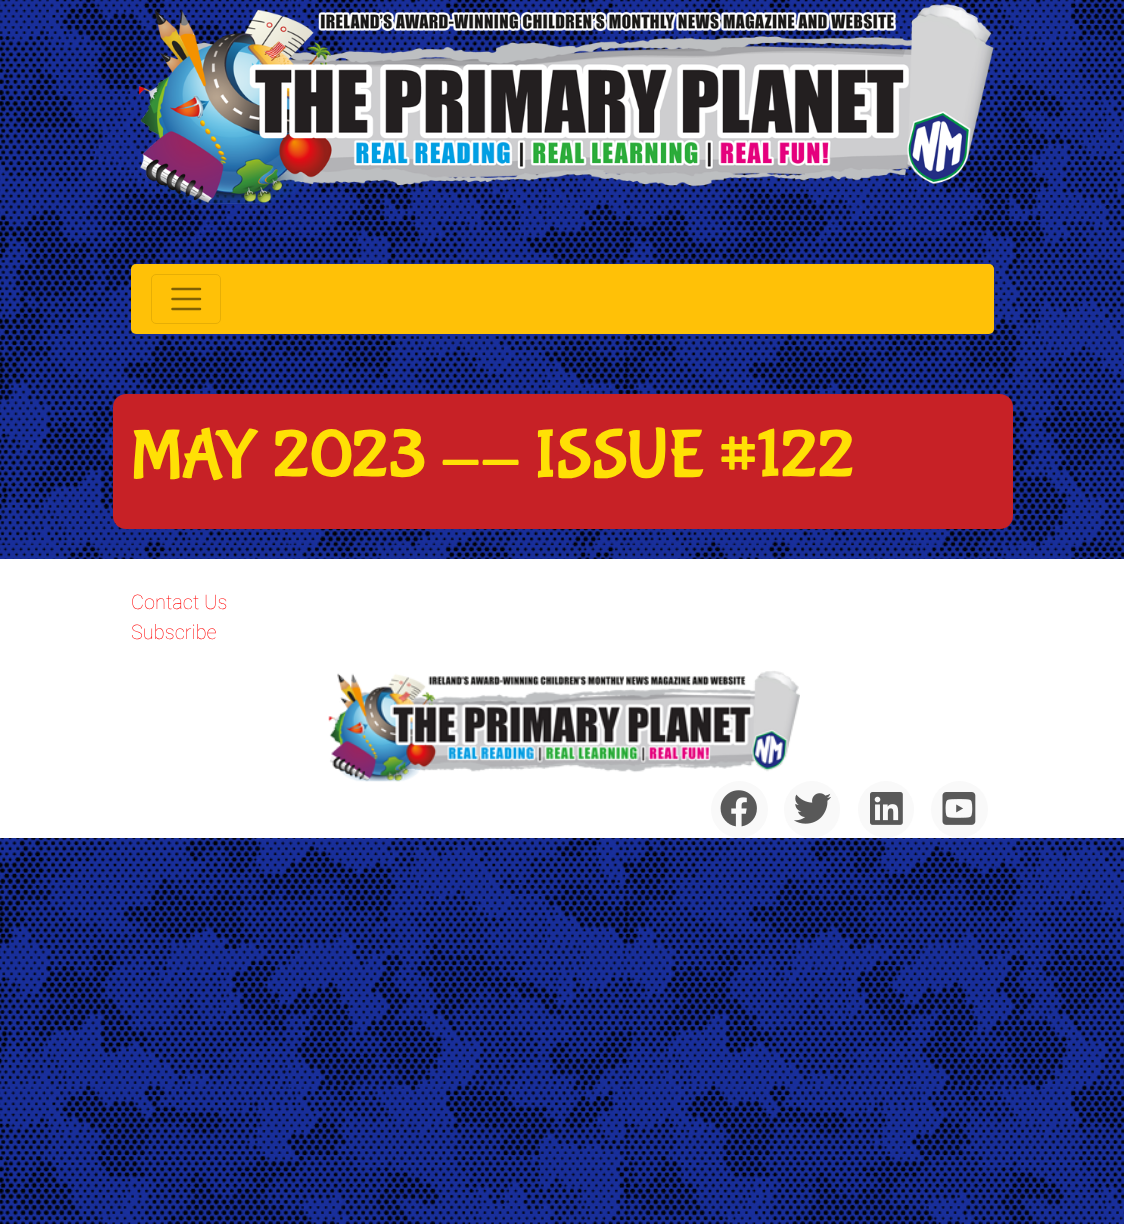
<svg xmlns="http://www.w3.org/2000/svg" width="1124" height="1224">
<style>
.a{font:70px Bubblegum Sans;fill:#ffe005}
.b{font:100 20px Roboto;fill:#f00}
</style>
<rect width="100%" height="100%" fill="#fff"/>
<image href="1.png" x="0" y="0" width="1124" height="1224"/>
<image href="2.png" x="138" y="0" width="856" height="204"/>
<rect fill="#ffc107" x="131" y="264" width="863" height="70" rx="5"/>
<rect fill="none" stroke="#e6ae06" x="151.5" y="274.5" width="69" height="49" rx="4.5"/>
<path fill="none" stroke="#806104" stroke-width="2.5" stroke-linecap="round" d="M172.5 289h27.5m-27.5 10h27.5m-27.5 10h27.5"/>
<rect fill="#c72126" x="113" y="394" width="900" height="135" rx="13"/>
<path fill="#fff" d="M0 559h1124v279H0z"/>
<image href="3.png" x="328" y="670" width="472" height="112"/>
<circle fill="#f9f9f9" cx="739.5" cy="809.5" r="28.5"/>
<image href="4.png" x="720" y="790" width="37" height="37"/>
<rect fill="#f9f9f9" x="784" y="781" width="56" height="57" rx="28"/>
<image href="5.png" x="794" y="793" width="37" height="31"/>
<rect fill="#f9f9f9" x="858" y="781" width="56" height="57" rx="28"/>
<image href="6.png" x="870" y="792" width="33" height="33"/>
<circle fill="#f9f9f9" cx="959.5" cy="809.5" r="28.5"/>
<image href="7.png" x="942" y="792" width="34" height="33"/>
<text class="a" x="131" y="476">MAY 2023 -- ISSUE #122</text>
<text class="b" x="131" y="609">Contact Us</text>
<text class="b" x="131" y="639">Subscribe</text>
</svg>
